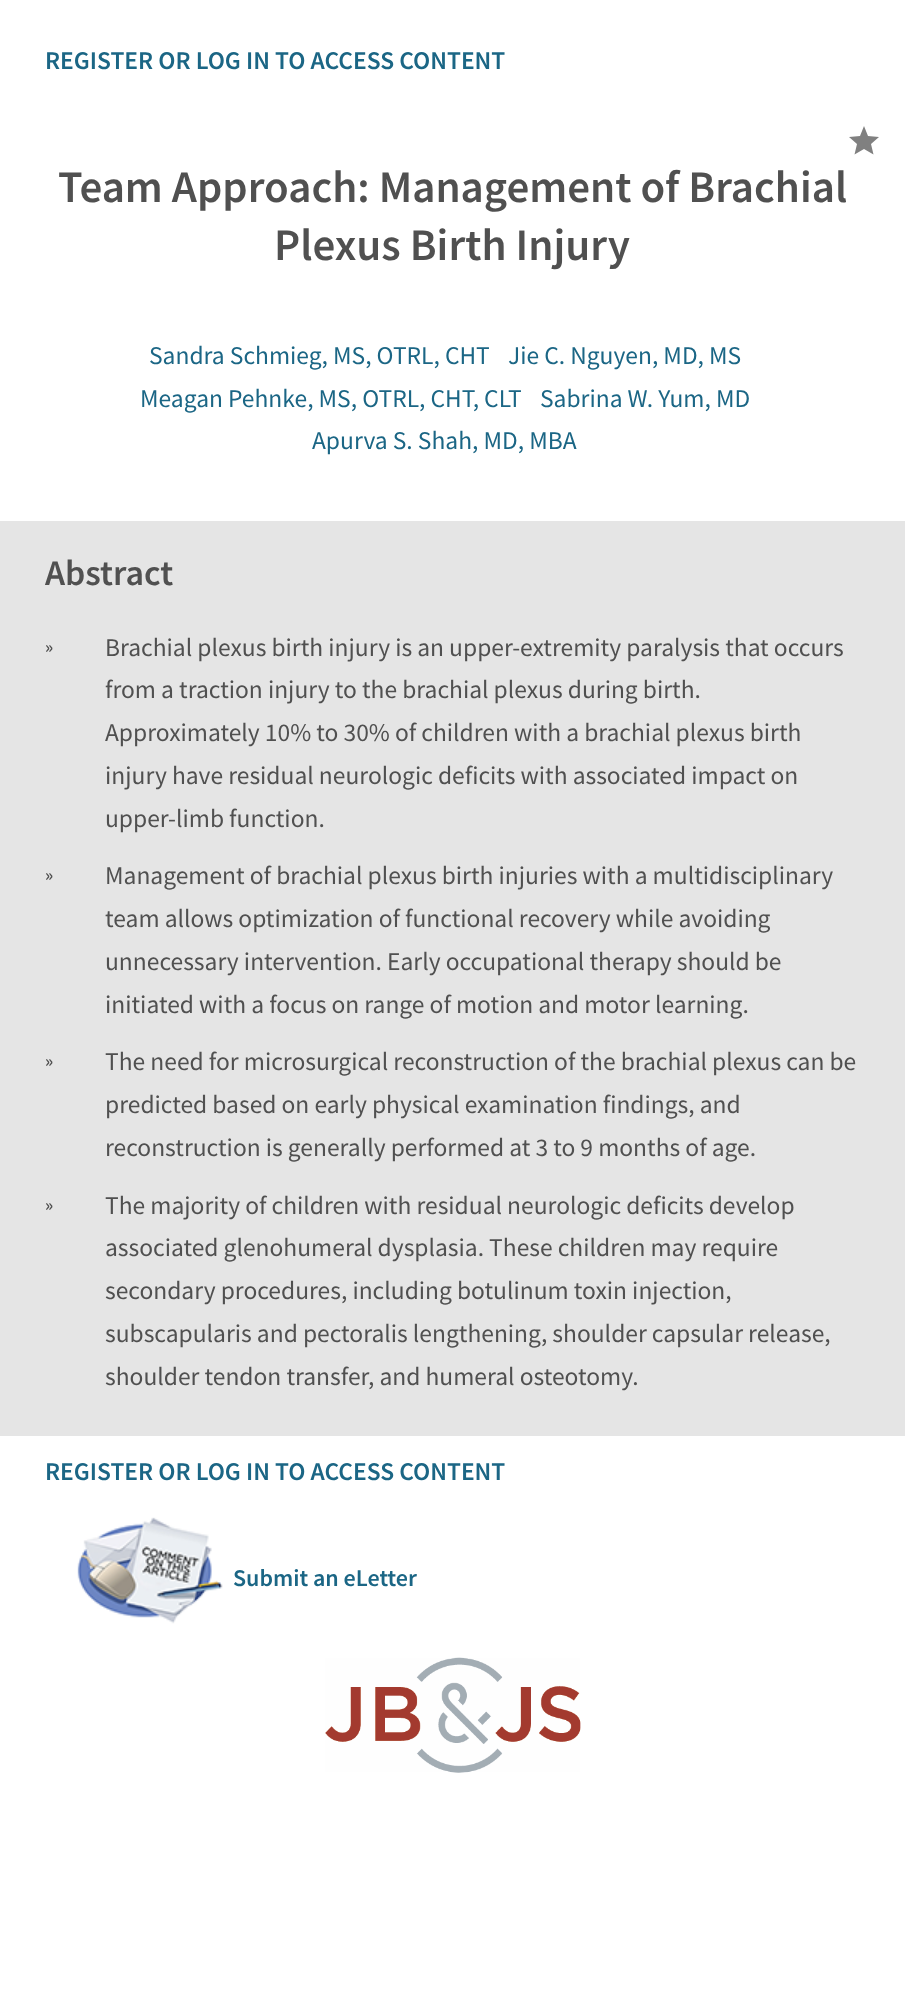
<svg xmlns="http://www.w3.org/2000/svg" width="905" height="1990">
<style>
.a{font:600 25.5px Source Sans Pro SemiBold;fill:#1b6685}
.b{font:600 45px Source Sans Pro SemiBold;fill:#505050}
.c{font:25.5px Source Sans Pro;fill:#1b6685}
.d{font:600 36px Source Sans Pro SemiBold;fill:#505050}
.e{font:600 18px Source Sans Pro SemiBold;fill:#505050}
.f{font:25.5px Source Sans Pro;fill:#505050}
.g{font:600 24px Source Sans Pro SemiBold;fill:#1b6685}
</style>
<rect width="100%" height="100%" fill="#fff"/>
<path fill="#e5e5e5" d="M0 521h905v915H0z"/>
<image href="1.png" x="77" y="1517" width="146" height="107"/>
<image href="2.png" x="325" y="1657" width="256" height="116"/>
<path fill="#808080" d="M864 149l9.5 5.5l-2.5-10.5l8-7l-11-1l-4-10l-4 10l-11 1l8 7l-2.5 10.5z"/>
<text class="a" x="45" y="69">REGISTER OR LOG IN TO ACCESS CONTENT</text>
<text class="b" x="58" y="202">Team Approach: Management of Brachial</text>
<text class="b" x="274" y="260">Plexus Birth Injury</text>
<text class="c" x="149" y="364">Sandra Schmieg, MS, OTRL, CHT</text>
<text class="c" x="508" y="364">Jie C. Nguyen, MD, MS</text>
<text class="c" x="140" y="407">Meagan Pehnke, MS, OTRL, CHT, CLT</text>
<text class="c" x="540" y="407">Sabrina W. Yum, MD</text>
<text class="c" x="312" y="449">Apurva S. Shah, MD, MBA</text>
<text class="d" x="45" y="585">Abstract</text>
<text class="e" x="45" y="653">»</text>
<text class="f" x="105" y="656">Brachial plexus birth injury is an upper-extremity paralysis that occurs</text>
<text class="f" x="105" y="698">from a traction injury to the brachial plexus during birth.</text>
<text class="f" x="105" y="741">Approximately 10% to 30% of children with a brachial plexus birth</text>
<text class="f" x="105" y="784">injury have residual neurologic deficits with associated impact on</text>
<text class="f" x="105" y="827">upper-limb function.</text>
<text class="e" x="45" y="881">»</text>
<text class="f" x="105" y="884">Management of brachial plexus birth injuries with a multidisciplinary</text>
<text class="f" x="105" y="927">team allows optimization of functional recovery while avoiding</text>
<text class="f" x="105" y="970">unnecessary intervention. Early occupational therapy should be</text>
<text class="f" x="105" y="1013">initiated with a focus on range of motion and motor learning.</text>
<text class="e" x="45" y="1067">»</text>
<text class="f" x="105" y="1070">The need for microsurgical reconstruction of the brachial plexus can be</text>
<text class="f" x="105" y="1113">predicted based on early physical examination findings, and</text>
<text class="f" x="105" y="1156">reconstruction is generally performed at 3 to 9 months of age.</text>
<text class="e" x="45" y="1211">»</text>
<text class="f" x="105" y="1214">The majority of children with residual neurologic deficits develop</text>
<text class="f" x="105" y="1256">associated glenohumeral dysplasia. These children may require</text>
<text class="f" x="105" y="1299">secondary procedures, including botulinum toxin injection,</text>
<text class="f" x="105" y="1342">subscapularis and pectoralis lengthening, shoulder capsular release,</text>
<text class="f" x="105" y="1385">shoulder tendon transfer, and humeral osteotomy.</text>
<text class="a" x="45" y="1480">REGISTER OR LOG IN TO ACCESS CONTENT</text>
<text class="g" x="233" y="1586">Submit an eLetter</text>
</svg>
